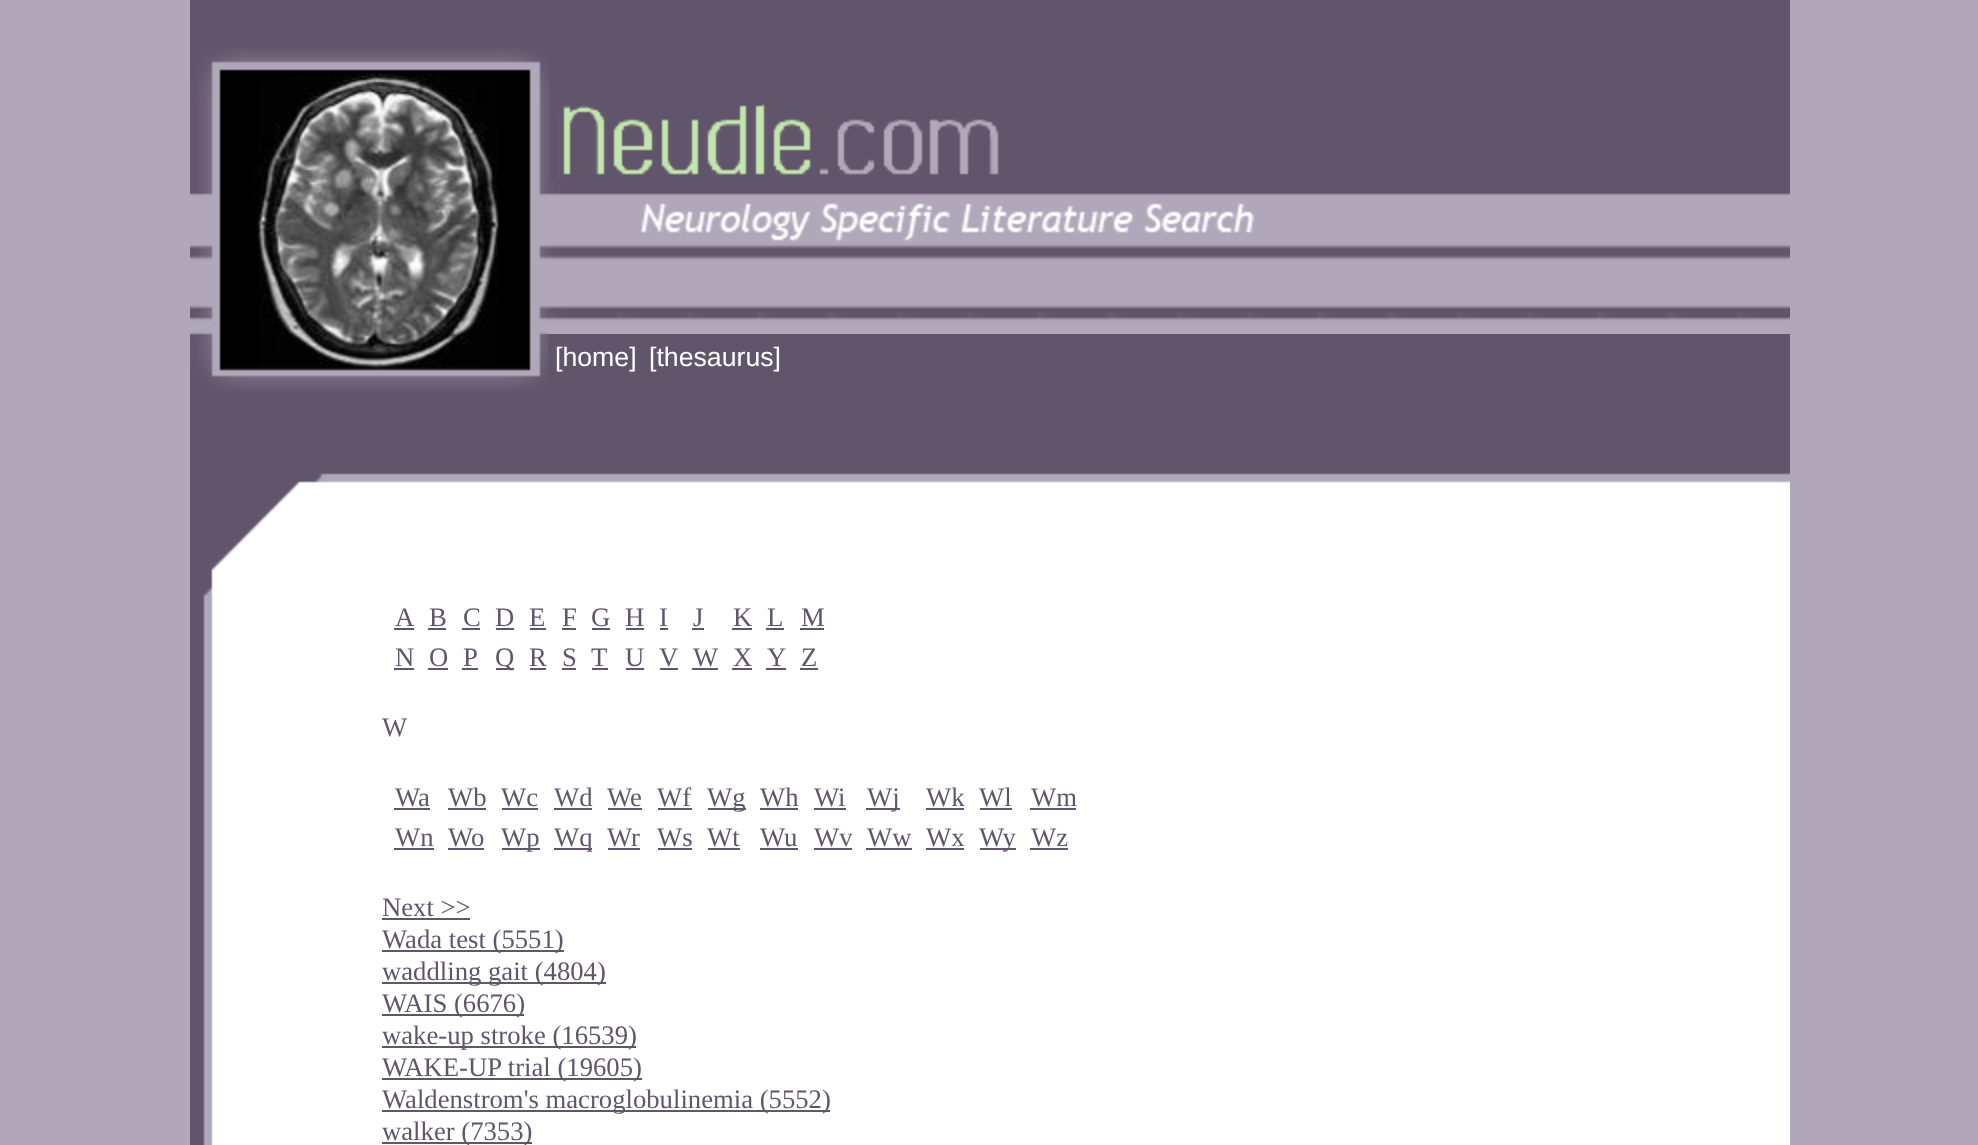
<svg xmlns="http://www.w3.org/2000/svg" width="1978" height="1145">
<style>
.a{font:26.7px Liberation Sans;fill:#fff}
.b{font:26.7px Liberation Serif;fill:#61556b}
</style>
<rect width="100%" height="100%" fill="#b1a7ba"/>
<path fill="#61556b" d="M190 0h1600v1145H190z"/>
<image href="1.png" x="190" y="48" width="358" height="343"/>
<image href="2.png" x="548" y="77" width="1242" height="233"/>
<image href="3.png" x="548" y="312" width="1242" height="22"/>
<image href="4.png" x="203" y="473" width="129" height="123"/>
<path fill="#fff" d="M332 483h1458v662H332z"/>
<image href="5.png" x="332" y="462" width="1458" height="21"/>
<image href="6.png" x="203" y="596" width="129" height="549"/>
<path fill="#61556b" d="M394 628h20v2H394z"/>
<path fill="#61556b" d="M428 628h18v2H428z"/>
<path fill="#61556b" d="M462 628h18v2H462z"/>
<path fill="#61556b" d="M496 628h18v2H496z"/>
<path fill="#61556b" d="M530 628h16v2H530z"/>
<path fill="#61556b" d="M562 628h14v2H562z"/>
<path fill="#61556b" d="M592 628h18v2H592z"/>
<path fill="#61556b" d="M626 628h18v2H626z"/>
<path fill="#61556b" d="M660 628h8v2H660z"/>
<path fill="#61556b" d="M692 628h12v2H692z"/>
<path fill="#61556b" d="M732 628h20v2H732z"/>
<path fill="#61556b" d="M766 628h18v2H766z"/>
<path fill="#61556b" d="M800 628h24v2H800z"/>
<path fill="#61556b" d="M394 668h20v2H394z"/>
<path fill="#61556b" d="M428 668h20v2H428z"/>
<path fill="#61556b" d="M462 668h16v2H462z"/>
<path fill="#61556b" d="M496 668h18v2H496z"/>
<path fill="#61556b" d="M530 668h16v2H530z"/>
<path fill="#61556b" d="M562 668h14v2H562z"/>
<path fill="#61556b" d="M592 668h16v2H592z"/>
<path fill="#61556b" d="M626 668h18v2H626z"/>
<path fill="#61556b" d="M660 668h18v2H660z"/>
<path fill="#61556b" d="M692 668h26v2H692z"/>
<path fill="#61556b" d="M732 668h20v2H732z"/>
<path fill="#61556b" d="M766 668h20v2H766z"/>
<path fill="#61556b" d="M800 668h18v2H800z"/>
<path fill="#61556b" d="M394 808h36v2H394z"/>
<path fill="#61556b" d="M448 808h38v2H448z"/>
<path fill="#61556b" d="M502 808h36v2H502z"/>
<path fill="#61556b" d="M554 808h38v2H554z"/>
<path fill="#61556b" d="M608 808h34v2H608z"/>
<path fill="#61556b" d="M658 808h34v2H658z"/>
<path fill="#61556b" d="M708 808h38v2H708z"/>
<path fill="#61556b" d="M760 808h38v2H760z"/>
<path fill="#61556b" d="M814 808h32v2H814z"/>
<path fill="#61556b" d="M866 808h34v2H866z"/>
<path fill="#61556b" d="M926 808h38v2H926z"/>
<path fill="#61556b" d="M980 808h32v2H980z"/>
<path fill="#61556b" d="M1030 808h46v2H1030z"/>
<path fill="#61556b" d="M394 848h40v2H394z"/>
<path fill="#61556b" d="M448 848h36v2H448z"/>
<path fill="#61556b" d="M502 848h38v2H502z"/>
<path fill="#61556b" d="M554 848h38v2H554z"/>
<path fill="#61556b" d="M608 848h32v2H608z"/>
<path fill="#61556b" d="M658 848h34v2H658z"/>
<path fill="#61556b" d="M708 848h32v2H708z"/>
<path fill="#61556b" d="M760 848h38v2H760z"/>
<path fill="#61556b" d="M814 848h38v2H814z"/>
<path fill="#61556b" d="M866 848h46v2H866z"/>
<path fill="#61556b" d="M926 848h38v2H926z"/>
<path fill="#61556b" d="M980 848h36v2H980z"/>
<path fill="#61556b" d="M1030 848h38v2H1030z"/>
<path fill="#61556b" d="M382 918h88v2H382z"/>
<path fill="#61556b" d="M382 950h182v2H382z"/>
<path fill="#61556b" d="M382 982h224v2H382z"/>
<path fill="#61556b" d="M382 1014h142v2H382z"/>
<path fill="#61556b" d="M382 1046h254v2H382z"/>
<path fill="#61556b" d="M382 1078h260v2H382z"/>
<path fill="#61556b" d="M382 1110h448v2H382z"/>
<path fill="#61556b" d="M382 1142h150v2H382z"/>
<text class="a" x="555" y="366">[home]</text>
<text class="a" x="649" y="366">[thesaurus]</text>
<text class="b" x="395" y="626">A</text>
<text class="b" x="429" y="626">B</text>
<text class="b" x="463" y="626">C</text>
<text class="b" x="495" y="626">D</text>
<text class="b" x="529" y="626">E</text>
<text class="b" x="562" y="626">F</text>
<text class="b" x="591" y="626">G</text>
<text class="b" x="625" y="626">H</text>
<text class="b" x="659" y="626">I</text>
<text class="b" x="693" y="626">J</text>
<text class="b" x="733" y="626">K</text>
<text class="b" x="767" y="626">L</text>
<text class="b" x="801" y="626">M</text>
<text class="b" x="395" y="666">N</text>
<text class="b" x="429" y="666">O</text>
<text class="b" x="463" y="666">P</text>
<text class="b" x="495" y="666">Q</text>
<text class="b" x="529" y="666">R</text>
<text class="b" x="562" y="666">S</text>
<text class="b" x="591" y="666">T</text>
<text class="b" x="625" y="666">U</text>
<text class="b" x="659" y="666">V</text>
<text class="b" x="693" y="666">W</text>
<text class="b" x="733" y="666">X</text>
<text class="b" x="767" y="666">Y</text>
<text class="b" x="801" y="666">Z</text>
<text class="b" x="382" y="736">W</text>
<text class="b" x="395" y="806">Wa</text>
<text class="b" x="448" y="806">Wb</text>
<text class="b" x="501" y="806">Wc</text>
<text class="b" x="554" y="806">Wd</text>
<text class="b" x="607" y="806">We</text>
<text class="b" x="657" y="806">Wf</text>
<text class="b" x="707" y="806">Wg</text>
<text class="b" x="760" y="806">Wh</text>
<text class="b" x="814" y="806">Wi</text>
<text class="b" x="867" y="806">Wj</text>
<text class="b" x="926" y="806">Wk</text>
<text class="b" x="979" y="806">Wl</text>
<text class="b" x="1031" y="806">Wm</text>
<text class="b" x="395" y="846">Wn</text>
<text class="b" x="448" y="846">Wo</text>
<text class="b" x="501" y="846">Wp</text>
<text class="b" x="554" y="846">Wq</text>
<text class="b" x="607" y="846">Wr</text>
<text class="b" x="657" y="846">Ws</text>
<text class="b" x="707" y="846">Wt</text>
<text class="b" x="760" y="846">Wu</text>
<text class="b" x="814" y="846">Wv</text>
<text class="b" x="867" y="846">Ww</text>
<text class="b" x="926" y="846">Wx</text>
<text class="b" x="979" y="846">Wy</text>
<text class="b" x="1031" y="846">Wz</text>
<text class="b" x="382" y="916">Next &gt;&gt;</text>
<text class="b" x="382" y="948">Wada test (5551)</text>
<text class="b" x="382" y="980">waddling gait (4804)</text>
<text class="b" x="382" y="1012">WAIS (6676)</text>
<text class="b" x="382" y="1044">wake-up stroke (16539)</text>
<text class="b" x="382" y="1076">WAKE-UP trial (19605)</text>
<text class="b" x="382" y="1108">Waldenstrom's macroglobulinemia (5552)</text>
<text class="b" x="382" y="1140">walker (7353)</text>
</svg>
